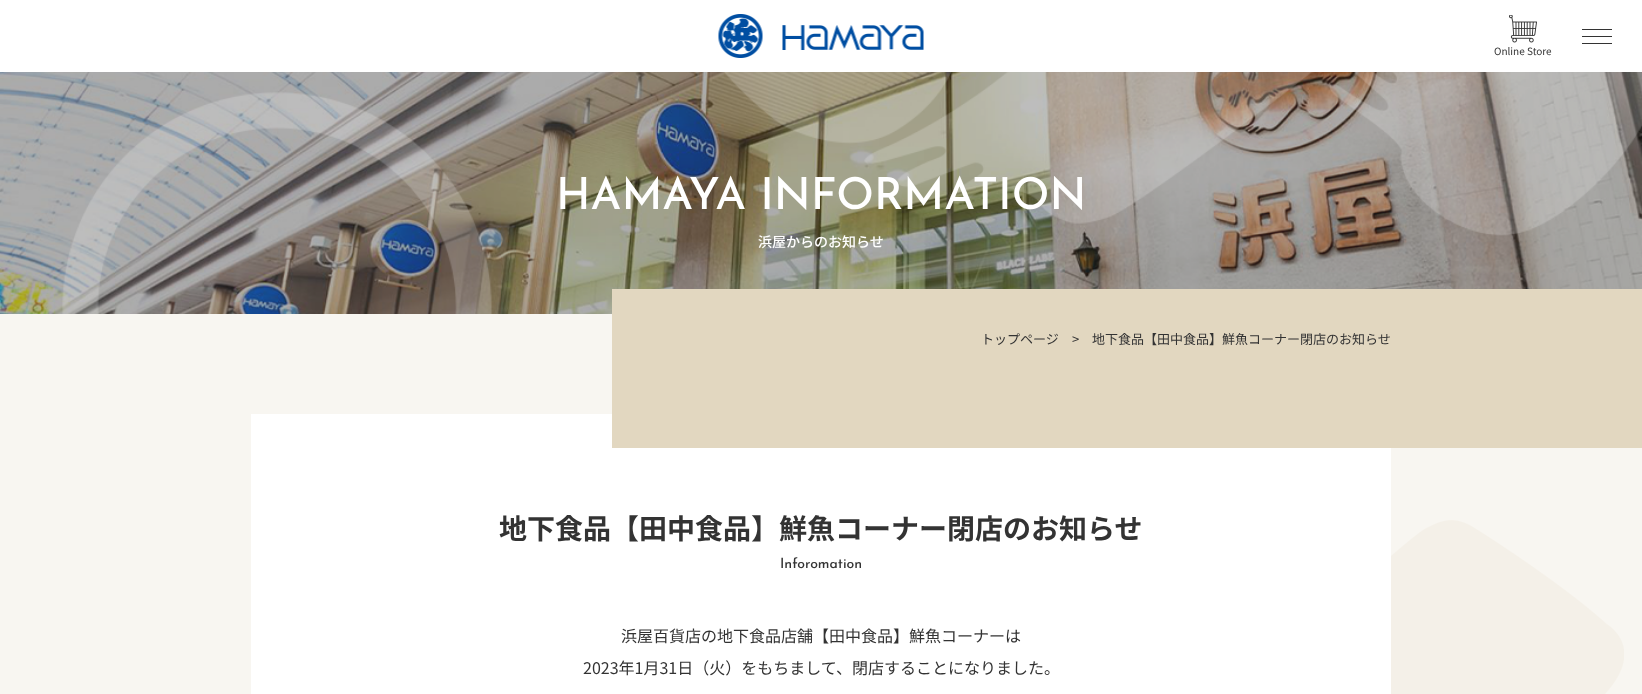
<svg xmlns="http://www.w3.org/2000/svg" width="1642" height="694">
<style>
.a{font:10px Noto Sans JP;fill:#333}
.b{font:100 44px Josefin Sans;fill:#fff}
.c{font:500 14px Noto Sans JP;fill:#fff}
.d{font:13px Noto Sans JP;fill:#333}
.e{font:bold 28px Noto Sans JP;fill:#333}
.f{font:100 14px Josefin Sans;fill:#333}
.g{font:16px Noto Sans JP;fill:#333}
</style>
<rect width="100%" height="100%" fill="#f8f6f1"/>
<path fill="#fff" d="M0 0h1642v72H0z"/>
<image href="1.png" x="718" y="14" width="206" height="44"/>
<path fill="#333" d="M1582 29h30v1H1582z"/>
<path fill="#333" d="M1582 36h30v1H1582z"/>
<path fill="#333" d="M1582 43h30v1H1582z"/>
<image href="2.png" x="1509" y="15" width="28" height="28"/>
<image href="3.png" x="0" y="72" width="1642" height="242"/>
<path fill="#fff" d="M251 414h1140v280H251z"/>
<path fill="#e2d7c0" d="M612 289h1030v159H612z"/>
<image href="4.png" x="1391" y="520" width="233" height="174"/>
<text class="a" x="1494" y="55">Online Store</text>
<text class="b" x="556" y="209">HAMAYA INFORMATION</text>
<text class="c" x="758" y="247">浜屋からのお知らせ</text>
<text class="d" x="981" y="344">トップページ</text>
<text class="d" x="1072" y="344">&gt;</text>
<text class="d" x="1092" y="344">地下食品【田中食品】鮮魚コーナー閉店のお知らせ</text>
<text class="e" x="499" y="539">地下食品【田中食品】鮮魚コーナー閉店のお知らせ</text>
<text class="f" x="780" y="568">Inforomation</text>
<text class="g" x="621" y="642">浜屋百貨店の地下食品店舗【田中食品】鮮魚コーナーは</text>
<text class="g" x="583" y="674">2023年1月31日（火）をもちまして、閉店することになりました。</text>
</svg>
